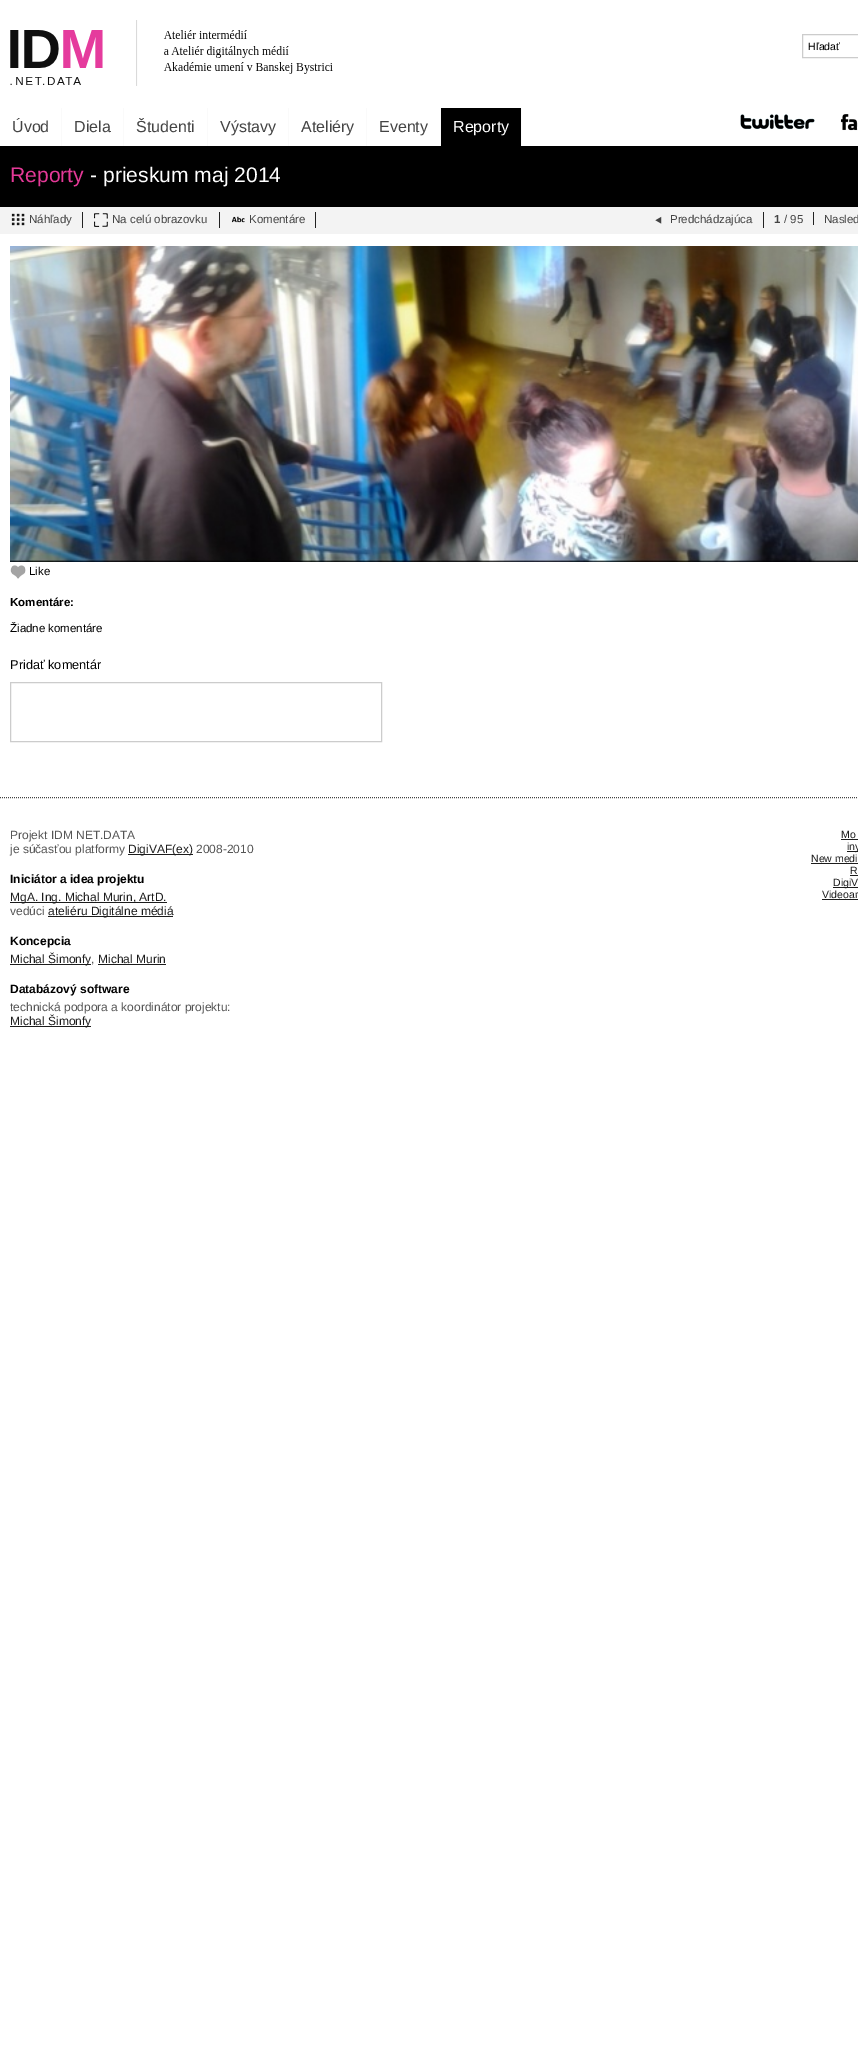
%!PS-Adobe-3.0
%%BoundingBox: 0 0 858 2054
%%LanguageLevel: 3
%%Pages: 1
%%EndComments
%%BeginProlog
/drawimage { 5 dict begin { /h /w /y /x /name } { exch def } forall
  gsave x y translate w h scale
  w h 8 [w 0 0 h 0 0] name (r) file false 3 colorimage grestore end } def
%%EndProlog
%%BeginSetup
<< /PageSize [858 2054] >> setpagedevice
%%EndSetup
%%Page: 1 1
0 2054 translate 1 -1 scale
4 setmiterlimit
1 setgray
0 0 858 2054 rectfill
(images/1.raw) 10 20 323 66 drawimage
0.8 setgray
802.5 34.5 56 23 rectstroke
0.98 setgray
61 108 1 38 rectfill
123 108 1 38 rectfill
207 108 1 38 rectfill
288 108 1 38 rectfill
366 108 1 38 rectfill
440 108 1 38 rectfill
0 setgray
441 108 80 38 rectfill
0.98 setgray
521 108 1 38 rectfill
(images/2.raw) 740 114 75 16 drawimage
(images/3.raw) 840 114 18 17 drawimage
0 setgray
0 146 858 61 rectfill
0.953 setgray
0 207 858 27 rectfill
0.133 setgray
82 212 1 16 rectfill
(images/4.raw) 11 213 14 13 drawimage
219 212 1 16 rectfill
(images/5.raw) 94 213 14 14 drawimage
315 212 1 16 rectfill
(images/6.raw) 231 216 14 7 drawimage
763 212 1 16 rectfill
(images/7.raw) 655 216 7 8 drawimage
813 212 1 13 rectfill
(images/8.raw) 10 246 848 316 drawimage
(images/9.raw) 10 565 16 14 drawimage
0.8 setgray
10.5 682.5 371 59 rectstroke
0.267 setgray
[1 1] 0 setdash
newpath 0 797.5 moveto 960 797.5 lineto stroke
0.11 setgray
128 854 65 1 rectfill
10 902 157 1 rectfill
48 916 125 1 rectfill
10 964 81 1 rectfill
98 964 68 1 rectfill
10 1026 81 1 rectfill
841 839 17 1 rectfill
847 851 11 1 rectfill
811 863 47 1 rectfill
850 875 8 1 rectfill
833 887 25 1 rectfill
822 899 36 1 rectfill
/LiberationSans-Regular [10.5 0 0 -10.5 0 0] selectfont
0 setgray
808 50 moveto (Hľadať) show
/LiberationSans-Regular [16 0 0 -16 0 0] selectfont
0.267 setgray
12 132 moveto (Úvod) show
74 132 moveto (Diela) show
136 132 moveto (Študenti) show
220 132 moveto (Výstavy) show
301 132 moveto (Ateliéry) show
379 132 moveto (Eventy) show
1 setgray
453 132 moveto (Reporty) show
/LiberationSans-Regular [21.1 0 0 -21.1 0 0] selectfont
0.894 0.224 0.592 setrgbcolor
10 182 moveto (Reporty) show
1 setgray
90 182 moveto (- prieskum maj 2014) show
/LiberationSans-Regular [11.5 0 0 -11.5 0 0] selectfont
0.267 setgray
29 223 moveto (Náhľady) show
112 223 moveto (Na celú obrazovku) show
249 223 moveto (Komentáre) show
670 223 moveto (Predchádzajúca) show
/LiberationSans-Bold [11.5 0 0 -11.5 0 0] selectfont
774 223 moveto (1) show
/LiberationSans-Regular [11.5 0 0 -11.5 0 0] selectfont
784 223 moveto (/ 95) show
824 223 moveto (Nasled) show
0 setgray
29 575 moveto (Like) show
/LiberationSans-Bold [11.5 0 0 -11.5 0 0] selectfont
10 606 moveto (Komentáre:) show
/LiberationSans-Regular [11.5 0 0 -11.5 0 0] selectfont
10 632 moveto (Žiadne komentáre) show
/LiberationSans-Regular [12.75 0 0 -12.75 0 0] selectfont
10 669 moveto (Pridať komentár) show
/LiberationSans-Regular [12 0 0 -12 0 0] selectfont
0.333 setgray
10 839 moveto (Projekt IDM NET.DATA) show
10 853 moveto (je súčasťou platformy) show
0.11 setgray
128 853 moveto (DigiVAF\(ex\)) show
0.333 setgray
196 853 moveto (2008-2010) show
/LiberationSans-Bold [12 0 0 -12 0 0] selectfont
0 setgray
10 883 moveto (Iniciátor a idea projektu) show
/LiberationSans-Regular [12 0 0 -12 0 0] selectfont
0.11 setgray
10 901 moveto (MgA. Ing. Michal Murin, ArtD.) show
0.333 setgray
10 915 moveto (vedúci) show
0.11 setgray
48 915 moveto (ateliéru Digitálne médiá) show
/LiberationSans-Bold [12 0 0 -12 0 0] selectfont
0 setgray
10 945 moveto (Koncepcia) show
/LiberationSans-Regular [12 0 0 -12 0 0] selectfont
0.11 setgray
10 963 moveto (Michal Šimonfy) show
0.333 setgray
91 963 moveto (,) show
0.11 setgray
98 963 moveto (Michal Murin) show
/LiberationSans-Bold [12 0 0 -12 0 0] selectfont
0 setgray
10 993 moveto (Databázový software) show
/LiberationSans-Regular [12 0 0 -12 0 0] selectfont
0.333 setgray
10 1011 moveto (technická podpora a koordinátor projektu:) show
0.11 setgray
10 1025 moveto (Michal Šimonfy) show
/LiberationSans-Regular [10.5 0 0 -10.5 0 0] selectfont
841 838 moveto (Mo) show
847 850 moveto (iny) show
811 862 moveto (New medi) show
850 874 moveto (R) show
833 886 moveto (DigiV) show
822 898 moveto (Videoar) show
showpage
%%EOF
